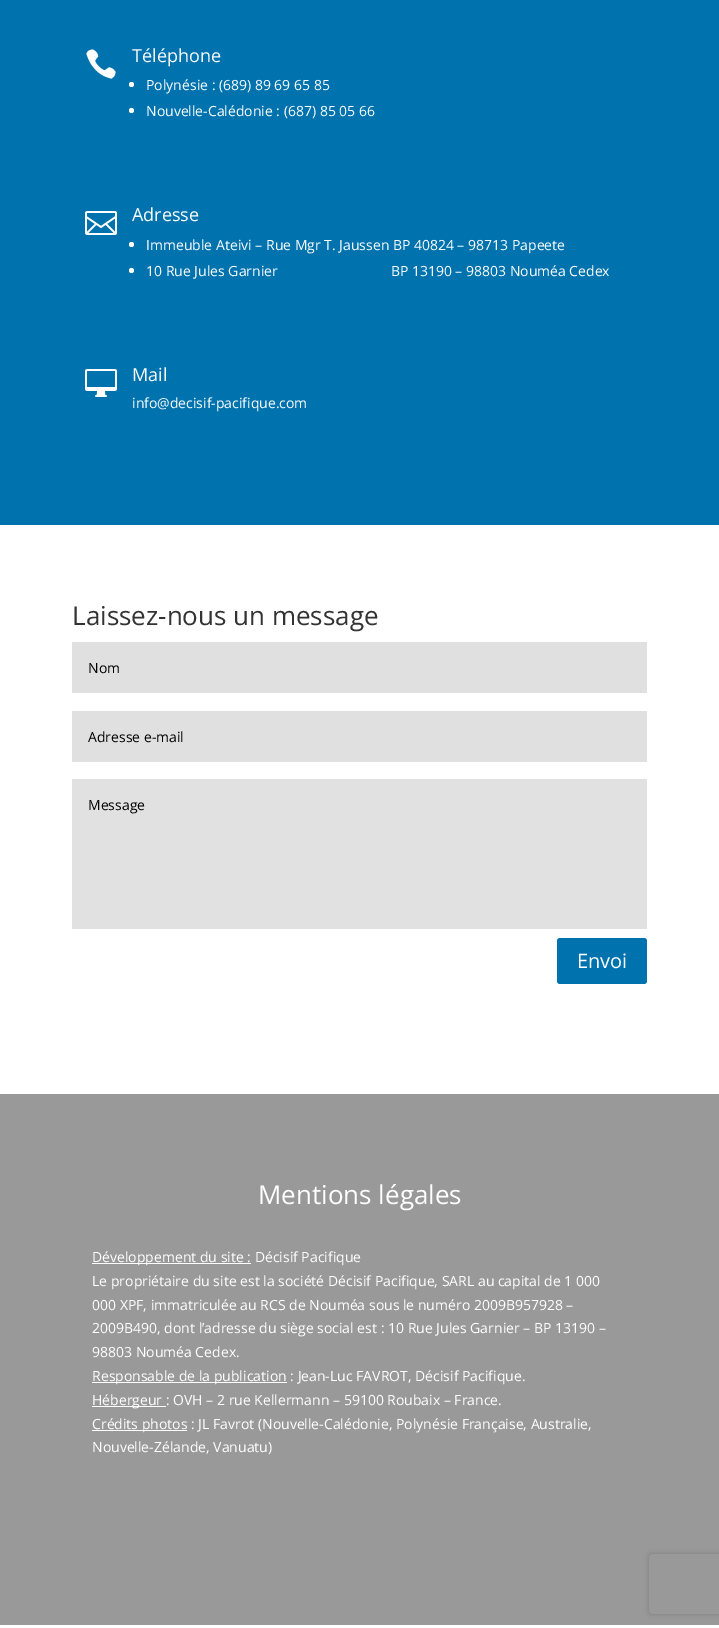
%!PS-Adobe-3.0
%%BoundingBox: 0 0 719 1628
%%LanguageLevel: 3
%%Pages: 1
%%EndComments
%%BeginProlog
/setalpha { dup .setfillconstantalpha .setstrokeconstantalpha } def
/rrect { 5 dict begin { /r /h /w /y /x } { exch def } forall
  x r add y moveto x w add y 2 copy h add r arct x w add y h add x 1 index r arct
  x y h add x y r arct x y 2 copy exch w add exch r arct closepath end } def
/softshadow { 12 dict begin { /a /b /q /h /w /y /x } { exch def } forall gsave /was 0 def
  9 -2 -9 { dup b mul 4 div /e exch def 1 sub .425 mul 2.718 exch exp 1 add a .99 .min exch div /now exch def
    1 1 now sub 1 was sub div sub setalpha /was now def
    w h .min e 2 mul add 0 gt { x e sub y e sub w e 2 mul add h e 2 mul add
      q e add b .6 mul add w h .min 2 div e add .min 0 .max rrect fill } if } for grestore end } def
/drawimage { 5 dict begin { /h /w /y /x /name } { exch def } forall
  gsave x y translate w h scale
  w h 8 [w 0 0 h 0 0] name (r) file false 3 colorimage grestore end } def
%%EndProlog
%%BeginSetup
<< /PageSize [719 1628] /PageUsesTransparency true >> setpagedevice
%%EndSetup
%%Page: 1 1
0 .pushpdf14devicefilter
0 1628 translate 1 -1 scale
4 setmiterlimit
1 setgray
0 0 719 1628 rectfill
0 0.451 0.682 setrgbcolor
0 0 719 525 rectfill
(images/1.raw) 86 49 30 30 drawimage
1 setgray
newpath 131.5 84.5 2.5 0 360 arc closepath fill
newpath 131.5 110.5 2.5 0 360 arc closepath fill
(images/2.raw) 85 211 32 24 drawimage
newpath 131.5 244.5 2.5 0 360 arc closepath fill
newpath 131.5 270.5 2.5 0 360 arc closepath fill
(images/3.raw) 85 369 32 28 drawimage
0.878 setgray
72 642 575 51 rectfill
72 711 575 51 rectfill
0.882 setgray
72 779 575 150 rectfill
0 0.451 0.682 setrgbcolor
557 938 90 46 3 rrect fill
0.6 setgray
0 1094 719 531 rectfill
1 setgray
92 1263 159 1 rectfill
92 1382 195 1 rectfill
92 1406 74 1 rectfill
92 1430 95 1 rectfill
gsave
newpath 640 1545 moveto 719 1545 lineto 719 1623 lineto 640 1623 lineto closepath 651 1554 moveto 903 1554 lineto 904 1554 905 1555 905 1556 curveto 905 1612 lineto 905 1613 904 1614 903 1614 curveto 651 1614 lineto 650 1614 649 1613 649 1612 curveto 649 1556 lineto 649 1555 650 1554 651 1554 curveto closepath eoclip newpath
0.502 setgray
649 1554 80 60 2 2.5 1 softshadow
grestore
/OpenSans-Regular [18 0 0 -18 0 0] selectfont
132 62 moveto (Téléphone) show
/OpenSans-Regular [14 0 0 -14 0 0] selectfont
146 90 moveto (Polynésie : \(689\) 89 69 65 85) show
146 116 moveto (Nouvelle-Calédonie : \(687\) 85 05 66) show
/OpenSans-Regular [18 0 0 -18 0 0] selectfont
132 221 moveto (Adresse) show
/OpenSans-Regular [14 0 0 -14 0 0] selectfont
146 250 moveto (Immeuble Ateivi – Rue Mgr T. Jaussen BP 40824 – 98713 Papeete) show
146 276 moveto (10 Rue Jules Garnier                               BP 13190 – 98803 Nouméa Cedex) show
/OpenSans-Regular [18 0 0 -18 0 0] selectfont
132 381 moveto (Mail) show
/OpenSans-Regular [14 0 0 -14 0 0] selectfont
132 408 moveto (info@decisif-pacifique.com) show
/OpenSans-Regular [26 0 0 -26 0 0] selectfont
0.2 setgray
72 625 moveto (Laissez-nous un message) show
/OpenSans-Regular [14 0 0 -14 0 0] selectfont
0 setgray
88 673 moveto (Nom) show
88 742 moveto (Adresse e-mail) show
88 810 moveto (Message) show
/OpenSans-Regular [20 0 0 -20 0 0] selectfont
1 setgray
577 968 moveto (Envoi) show
/OpenSans-Regular [26 0 0 -26 0 0] selectfont
258 1204 moveto (Mentions légales) show
/OpenSans-Regular [14 0 0 -14 0 0] selectfont
92 1262 moveto (Développement du site : Décisif Pacifique) show
92 1286 moveto (Le propriétaire du site est la société Décisif Pacifique, SARL au capital de 1 000) show
92 1310 moveto (000 XPF, immatriculée au RCS de Nouméa sous le numéro 2009B957928 –) show
92 1333 moveto (2009B490, dont l’adresse du siège social est : 10 Rue Jules Garnier – BP 13190 –) show
92 1357 moveto (98803 Nouméa Cedex.) show
92 1381 moveto (Responsable de la publication : Jean-Luc FAVROT, Décisif Pacifique.) show
92 1405 moveto (Hébergeur : OVH – 2 rue Kellermann – 59100 Roubaix – France.) show
92 1429 moveto (Crédits photos : JL Favrot \(Nouvelle-Calédonie, Polynésie Française, Australie,) show
92 1452 moveto (Nouvelle-Zélande, Vanuatu\)) show
.poppdf14devicefilter showpage
%%EOF
